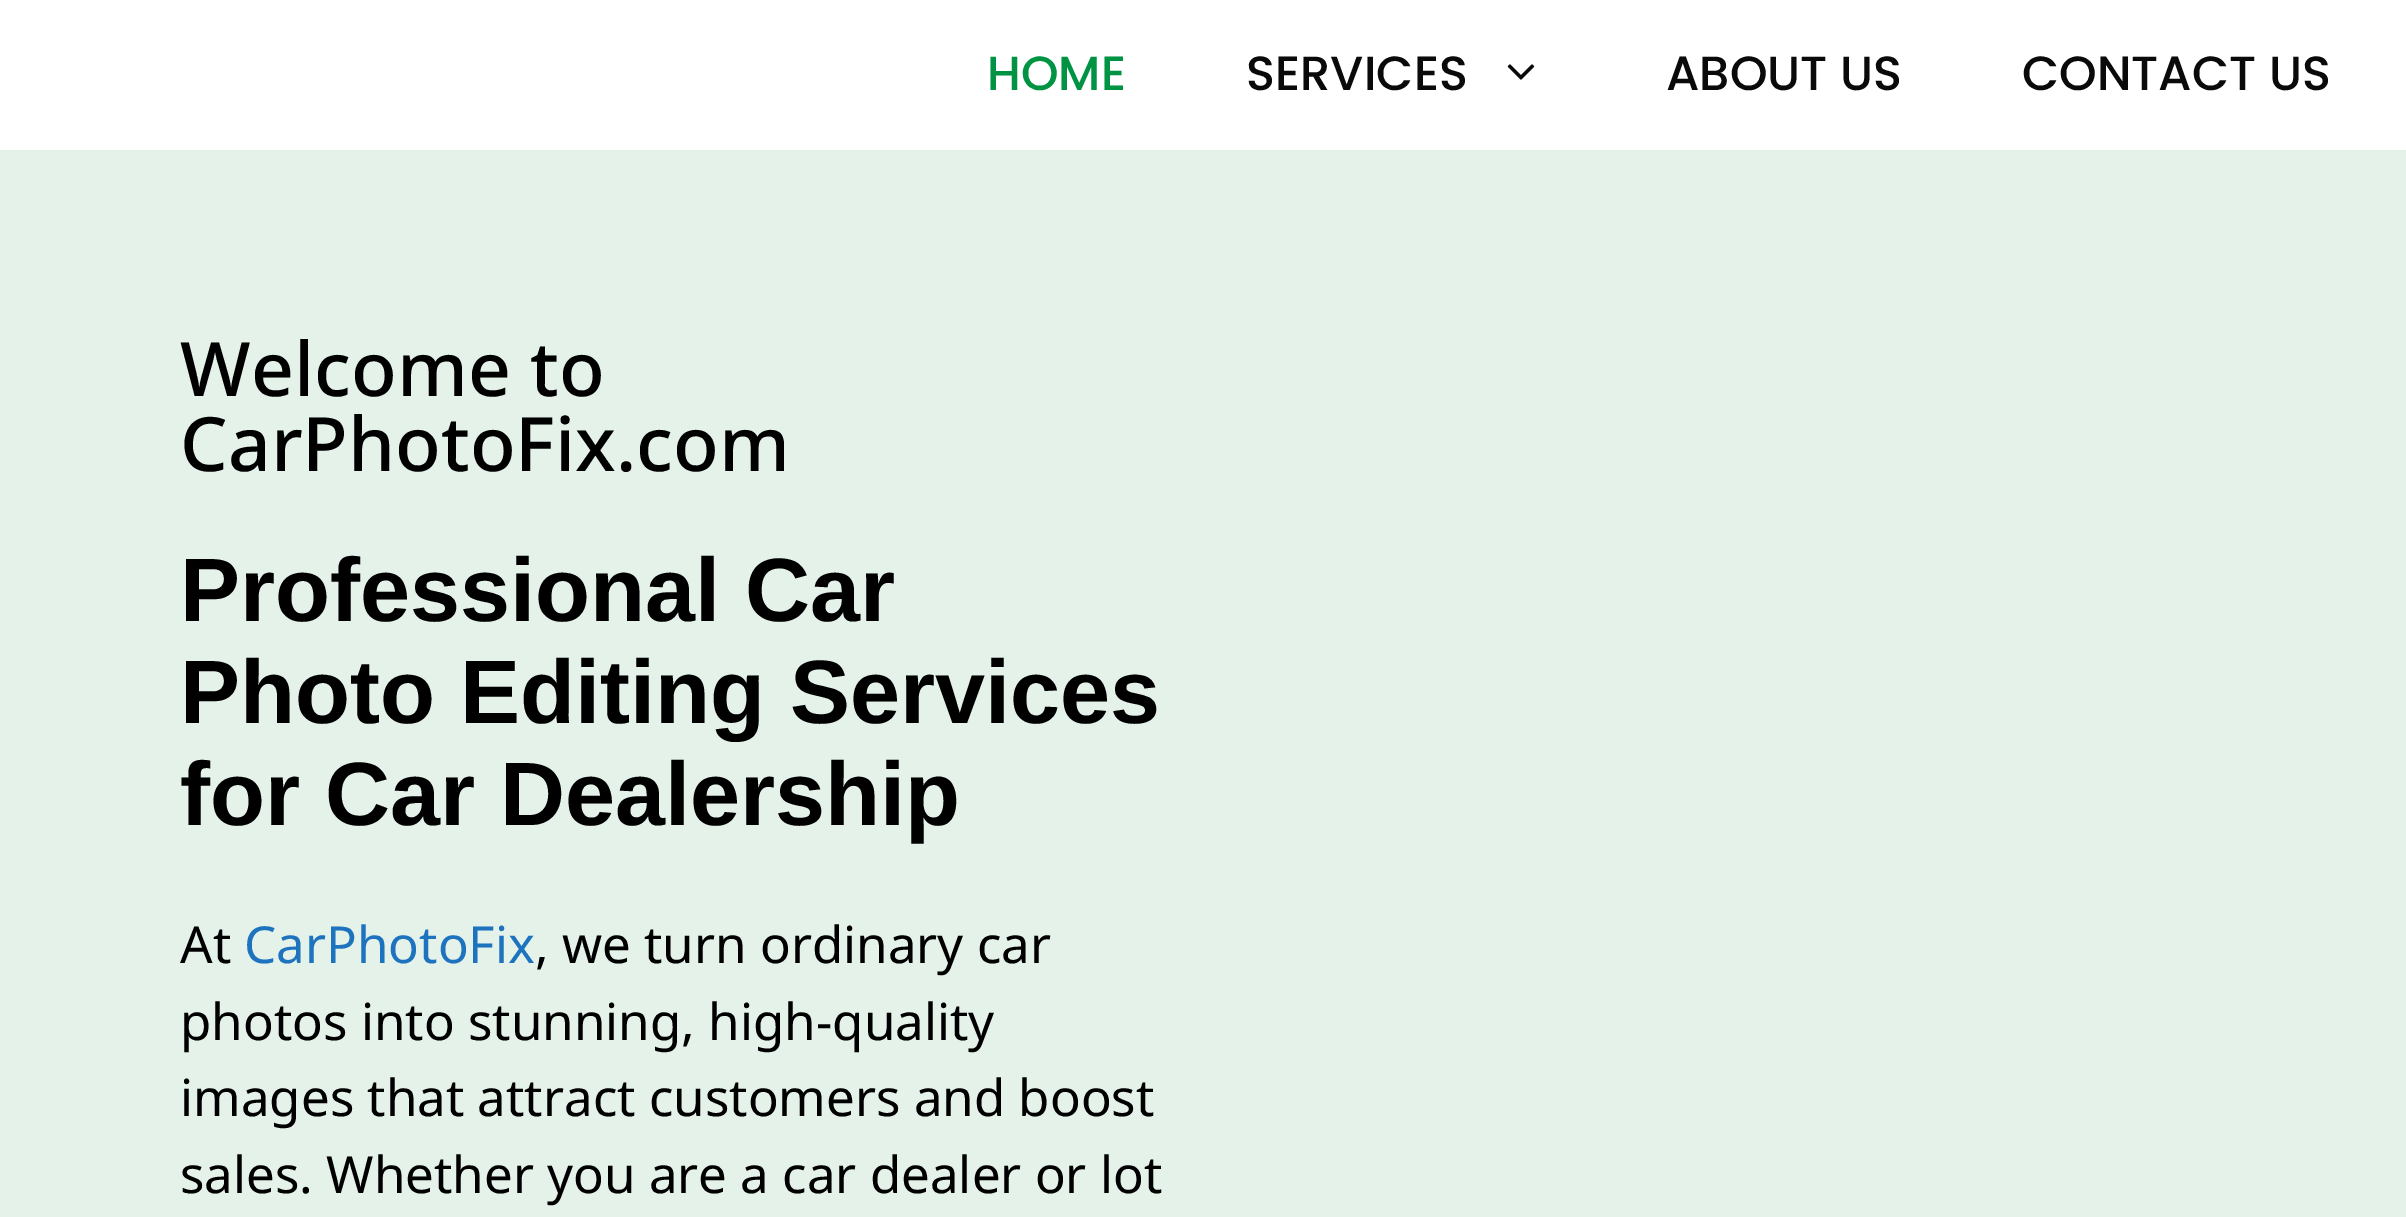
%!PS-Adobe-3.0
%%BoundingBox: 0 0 2406 1217
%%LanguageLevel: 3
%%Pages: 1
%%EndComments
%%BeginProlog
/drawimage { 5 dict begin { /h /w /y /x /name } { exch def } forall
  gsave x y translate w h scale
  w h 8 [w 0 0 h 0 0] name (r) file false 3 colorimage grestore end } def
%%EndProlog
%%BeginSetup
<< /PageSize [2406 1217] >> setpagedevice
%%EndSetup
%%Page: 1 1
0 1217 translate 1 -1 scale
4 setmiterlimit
1 setgray
0 0 2406 1217 rectfill
(images/1.raw) 1507 64 28 16 drawimage
0.894 0.949 0.918 setrgbcolor
0 150 2406 1067 rectfill
/Poppins-Medium [48 0 0 -48 0 0] selectfont
0 0.576 0.267 setrgbcolor
987 90 moveto (HOME) show
0.039 setgray
1246 90 moveto (SERVICES) show
1666 90 moveto (ABOUT US) show
2022 90 moveto (CONTACT US) show
/NotoSans-Medium [75 0 0 -75 0 0] selectfont
0 setgray
180 396 moveto (Welcome to) show
180 471 moveto (CarPhotoFix.com) show
/LiberationSans-Bold [90 0 0 -90 0 0] selectfont
180 621 moveto (Professional Car) show
180 723 moveto (Photo Editing Services) show
180 825 moveto (for Car Dealership) show
/NotoSans-Regular [51 0 0 -51 0 0] selectfont
180 963 moveto (At) show
0.118 0.451 0.745 setrgbcolor
244 963 moveto (CarPhotoFix) show
0 setgray
535 963 moveto (, we turn ordinary car) show
180 1040 moveto (photos into stunning, high-quality) show
180 1116 moveto (images that attract customers and boost) show
180 1193 moveto (sales. Whether you are a car dealer or lot) show
showpage
%%EOF
